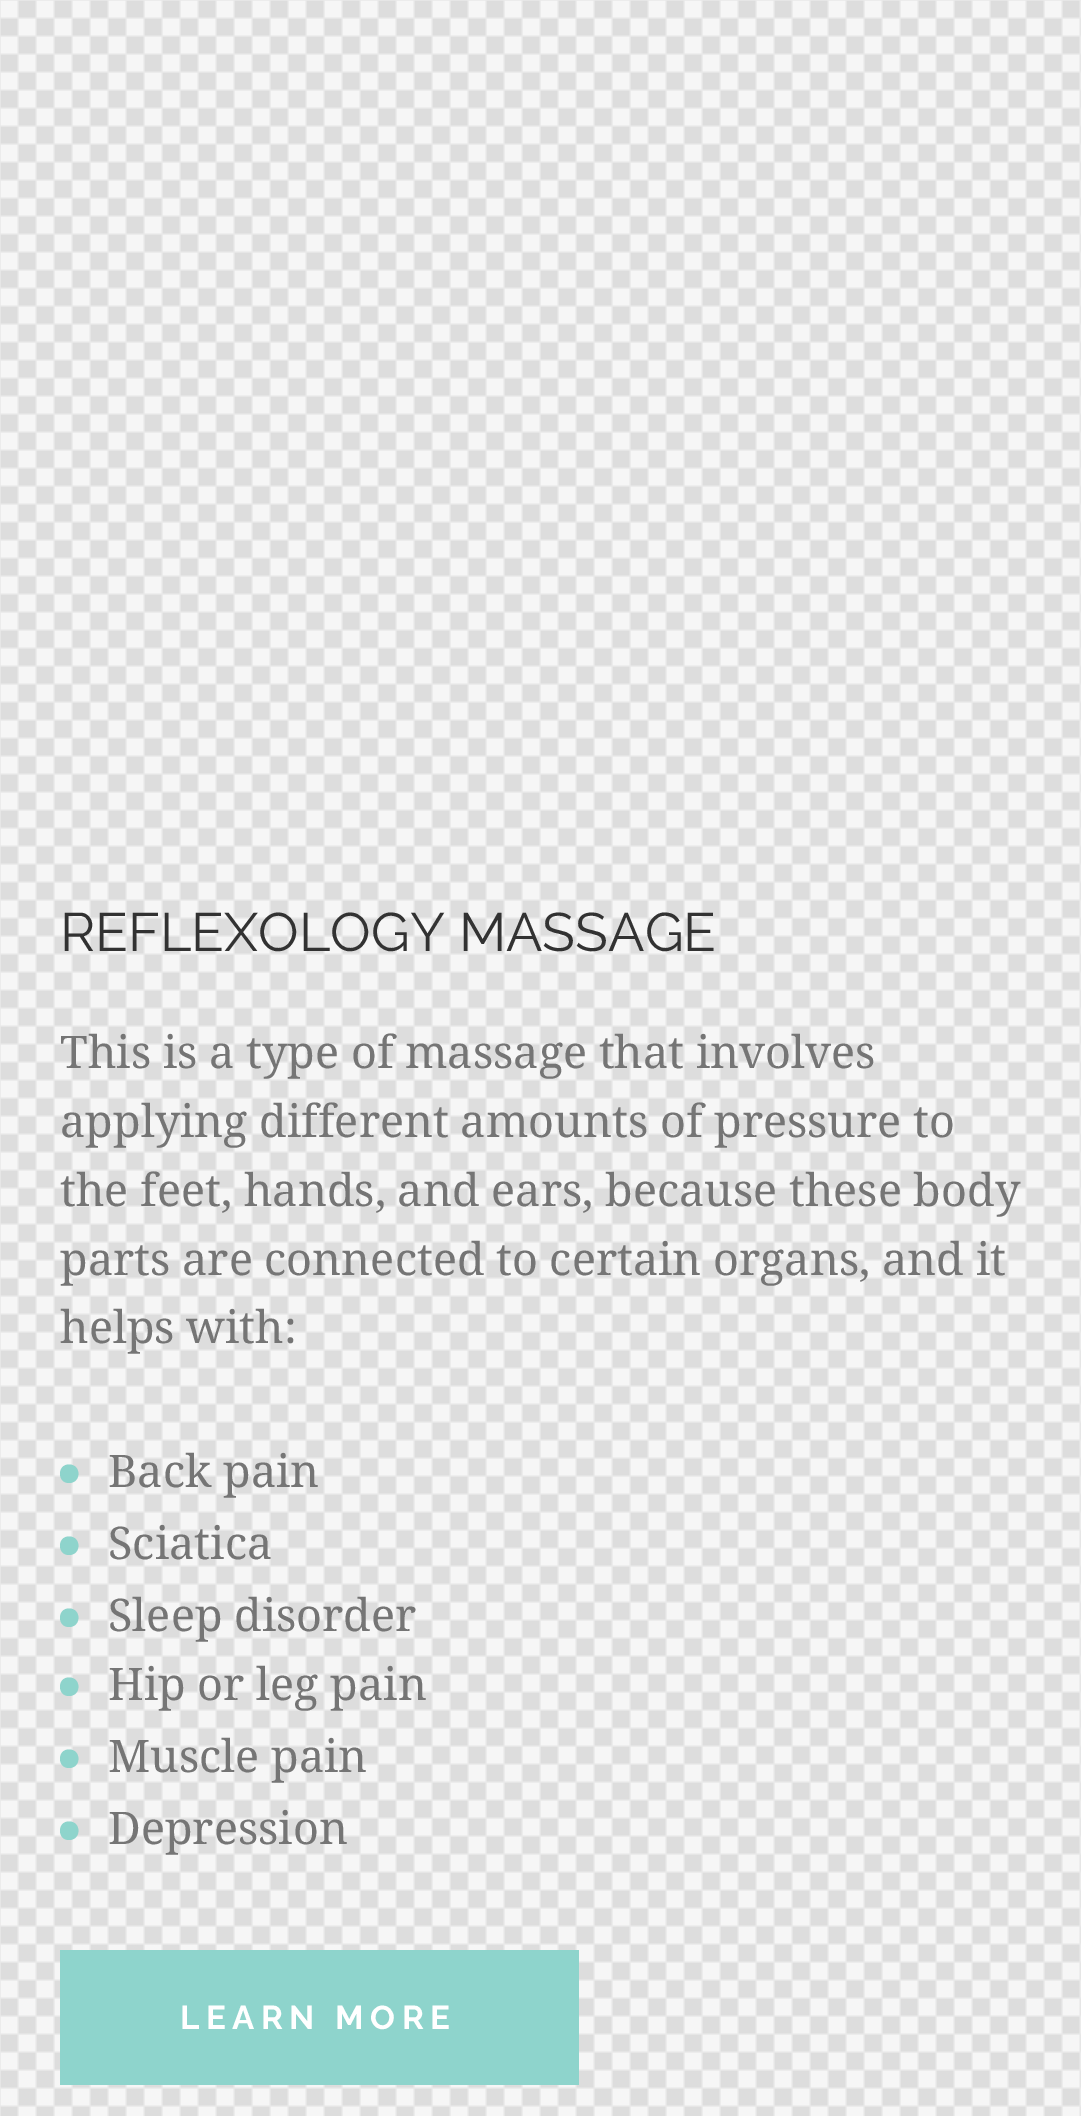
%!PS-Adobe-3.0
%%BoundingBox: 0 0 1081 2116
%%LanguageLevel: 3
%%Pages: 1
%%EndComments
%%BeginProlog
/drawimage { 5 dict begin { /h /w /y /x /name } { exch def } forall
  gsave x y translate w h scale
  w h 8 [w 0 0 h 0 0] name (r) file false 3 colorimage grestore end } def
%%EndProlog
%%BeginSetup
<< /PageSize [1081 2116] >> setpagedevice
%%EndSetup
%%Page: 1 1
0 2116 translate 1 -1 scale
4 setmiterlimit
1 setgray
0 0 1081 2116 rectfill
(images/1.raw) 0 0 1081 2116 drawimage
0.557 0.831 0.8 setrgbcolor
newpath 69 1464.5 moveto 81.5 1464.5 81.5 1483 69 1483 curveto 57 1483 57 1464.5 69 1464.5 curveto closepath fill
newpath 69 1536.5 moveto 81.5 1536.5 81.5 1555 69 1555 curveto 57 1555 57 1536.5 69 1536.5 curveto closepath fill
newpath 69 1608.5 moveto 81.5 1608.5 81.5 1627 69 1627 curveto 57 1627 57 1608.5 69 1608.5 curveto closepath fill
newpath 69 1677.5 moveto 81.5 1677.5 81.5 1696 69 1696 curveto 57 1696 57 1677.5 69 1677.5 curveto closepath fill
newpath 69 1749.5 moveto 81.5 1749.5 81.5 1768 69 1768 curveto 57 1768 57 1749.5 69 1749.5 curveto closepath fill
newpath 69 1821.5 moveto 81.5 1821.5 81.5 1840 69 1840 curveto 57 1840 57 1821.5 69 1821.5 curveto closepath fill
60 1950 519 135 rectfill
/Raleway-Regular [54 0 0 -54 0 0] selectfont
0.196 setgray
60 951 moveto (REFLEXOLOGY MASSAGE) show
/DroidSerif-Regular [45 0 0 -45 0 0] selectfont
0.459 setgray
60 1068 moveto (This is a type of massage that involves) show
60 1137 moveto (applying different amounts of pressure to) show
60 1206 moveto (the feet, hands, and ears, because these body) show
60 1275 moveto (parts are connected to certain organs, and it) show
60 1343 moveto (helps with:) show
108 1487 moveto (Back pain) show
108 1559 moveto (Sciatica) show
108 1631 moveto (Sleep disorder) show
108 1700 moveto (Hip or leg pain) show
108 1772 moveto (Muscle pain) show
108 1844 moveto (Depression) show
/Raleway-Bold [33 0 0 -33 0 0] selectfont
1 setgray
180 2029 moveto 6.5 0 (LEARN MORE) ashow
showpage
%%EOF
